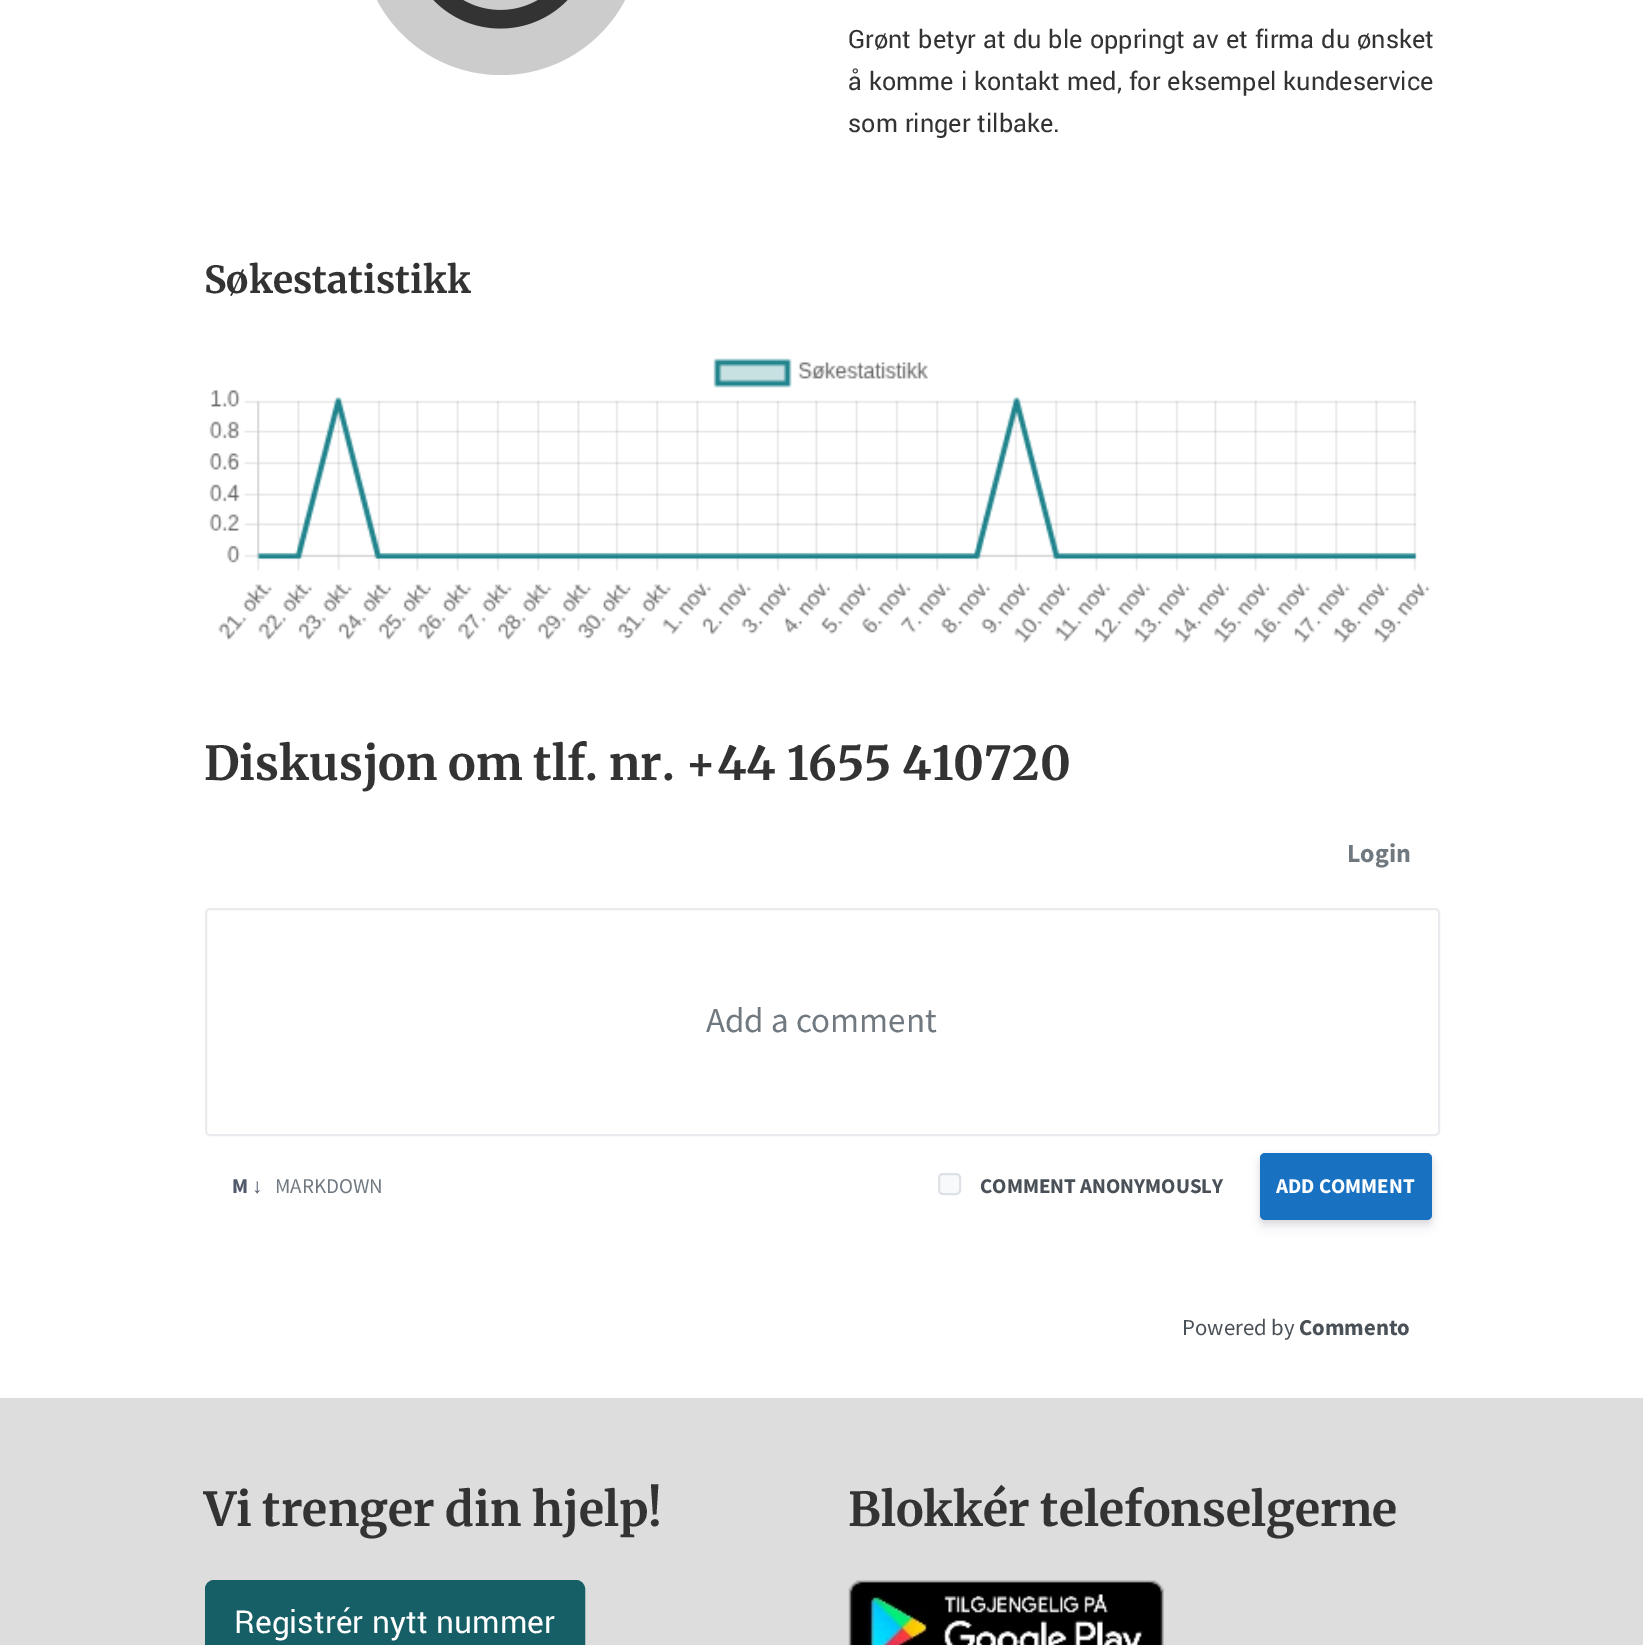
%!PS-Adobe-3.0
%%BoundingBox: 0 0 1643 1645
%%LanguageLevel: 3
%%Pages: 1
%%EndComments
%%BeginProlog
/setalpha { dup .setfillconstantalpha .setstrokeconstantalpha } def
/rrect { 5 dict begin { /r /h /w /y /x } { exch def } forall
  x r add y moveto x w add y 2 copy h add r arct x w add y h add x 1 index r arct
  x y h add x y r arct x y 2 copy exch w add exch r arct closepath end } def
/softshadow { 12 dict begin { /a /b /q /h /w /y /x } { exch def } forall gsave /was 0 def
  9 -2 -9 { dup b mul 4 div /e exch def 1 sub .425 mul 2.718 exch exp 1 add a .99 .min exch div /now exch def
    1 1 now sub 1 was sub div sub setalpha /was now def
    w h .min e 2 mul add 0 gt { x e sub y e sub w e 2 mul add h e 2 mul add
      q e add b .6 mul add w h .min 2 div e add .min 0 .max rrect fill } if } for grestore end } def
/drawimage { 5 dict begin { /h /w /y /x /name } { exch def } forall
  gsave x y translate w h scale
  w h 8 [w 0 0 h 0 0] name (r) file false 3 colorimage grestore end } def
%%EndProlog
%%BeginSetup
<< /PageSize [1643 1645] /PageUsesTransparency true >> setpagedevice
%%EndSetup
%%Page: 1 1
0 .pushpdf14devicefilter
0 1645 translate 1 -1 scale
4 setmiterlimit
1 setgray
0 0 1643 1645 rectfill
0.8 setgray
361 -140 280 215 140 rrect fill
(images/1.raw) 433 0 135 29 drawimage
(images/2.raw) 209 358 1221 285 drawimage
0.922 0.922 0.937 setrgbcolor
2 setlinewidth
206 909 1233 226 4 rrect stroke
0.973 0.976 0.98 setrgbcolor
939 1174 21 20 4 rrect gsave fill grestore
0.871 0.886 0.902 setrgbcolor
stroke
0 setgray
1260 1155 172 67 5 2.5 0.08 softshadow
0.196 0.196 0.365 setrgbcolor
1260 1160 172 67 5 5 0.11 softshadow
0.098 0.443 0.761 setrgbcolor
1260 1153 172 67 5 rrect fill
0.867 setgray
0 1398 1643 247 rectfill
0.09 0.373 0.4 setrgbcolor
206 1581 378 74 8 rrect gsave fill grestore
stroke
(images/3.raw) 848 1580 316 65 drawimage
/Yantramanav-Regular [28 0 0 -28 0 0] selectfont
0.2 setgray
848 48 moveto (Grønt betyr at du ble oppringt av et firma du ønsket) show
848 90 moveto (å komme i kontakt med, for eksempel kundeservice) show
848 132 moveto (som ringer tilbake.) show
/Merriweather-Bold [37.25 0 0 -37.25 0 0] selectfont
204 293 moveto (Søkestatistikk) show
/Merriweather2-Bold [46.75 0 0 -46.75 0 0] selectfont
204 780 moveto (Diskusjon om tlf. nr. +44 1655 410720) show
/SourceSansPro-Bold [26 0 0 -26 0 0] selectfont
0.439 0.471 0.502 setrgbcolor
1347 862 moveto (Login) show
/SourceSansPro-Regular [35 0 0 -35 0 0] selectfont
706 1032 moveto (Add a comment) show
/SourceSansPro-Bold [21 0 0 -21 0 0] selectfont
0.314 0.349 0.424 setrgbcolor
232 1193 moveto (M) show
/LiberationSans-Bold [21 0 0 -21 0 0] selectfont
252 1193 moveto (↓) show
/SourceSansPro-Regular [21 0 0 -21 0 0] selectfont
0.439 0.471 0.502 setrgbcolor
275 1193 moveto (MARKDOWN) show
/SourceSansPro-Bold [21 0 0 -21 0 0] selectfont
0.286 0.314 0.341 setrgbcolor
980 1193 moveto (COMMENT ANONYMOUSLY) show
1 setgray
1276 1193 moveto (ADD COMMENT) show
/SourceSansPro-Regular [22.75 0 0 -22.75 0 0] selectfont
0.286 0.314 0.341 setrgbcolor
1182 1335 moveto (Powered by) show
/SourceSansPro-Bold [22.75 0 0 -22.75 0 0] selectfont
1299 1335 moveto (Commento) show
/Merriweather2-Bold [46.75 0 0 -46.75 0 0] selectfont
0.2 setgray
204 1526 moveto (Vi trenger din hjelp!) show
/Yantramanav-Regular [35 0 0 -35 0 0] selectfont
1 setgray
234 1633 moveto (Registrér nytt nummer) show
/Merriweather2-Bold [46.75 0 0 -46.75 0 0] selectfont
0.2 setgray
848 1526 moveto (Blokkér telefonselgerne) show
.poppdf14devicefilter showpage
%%EOF
